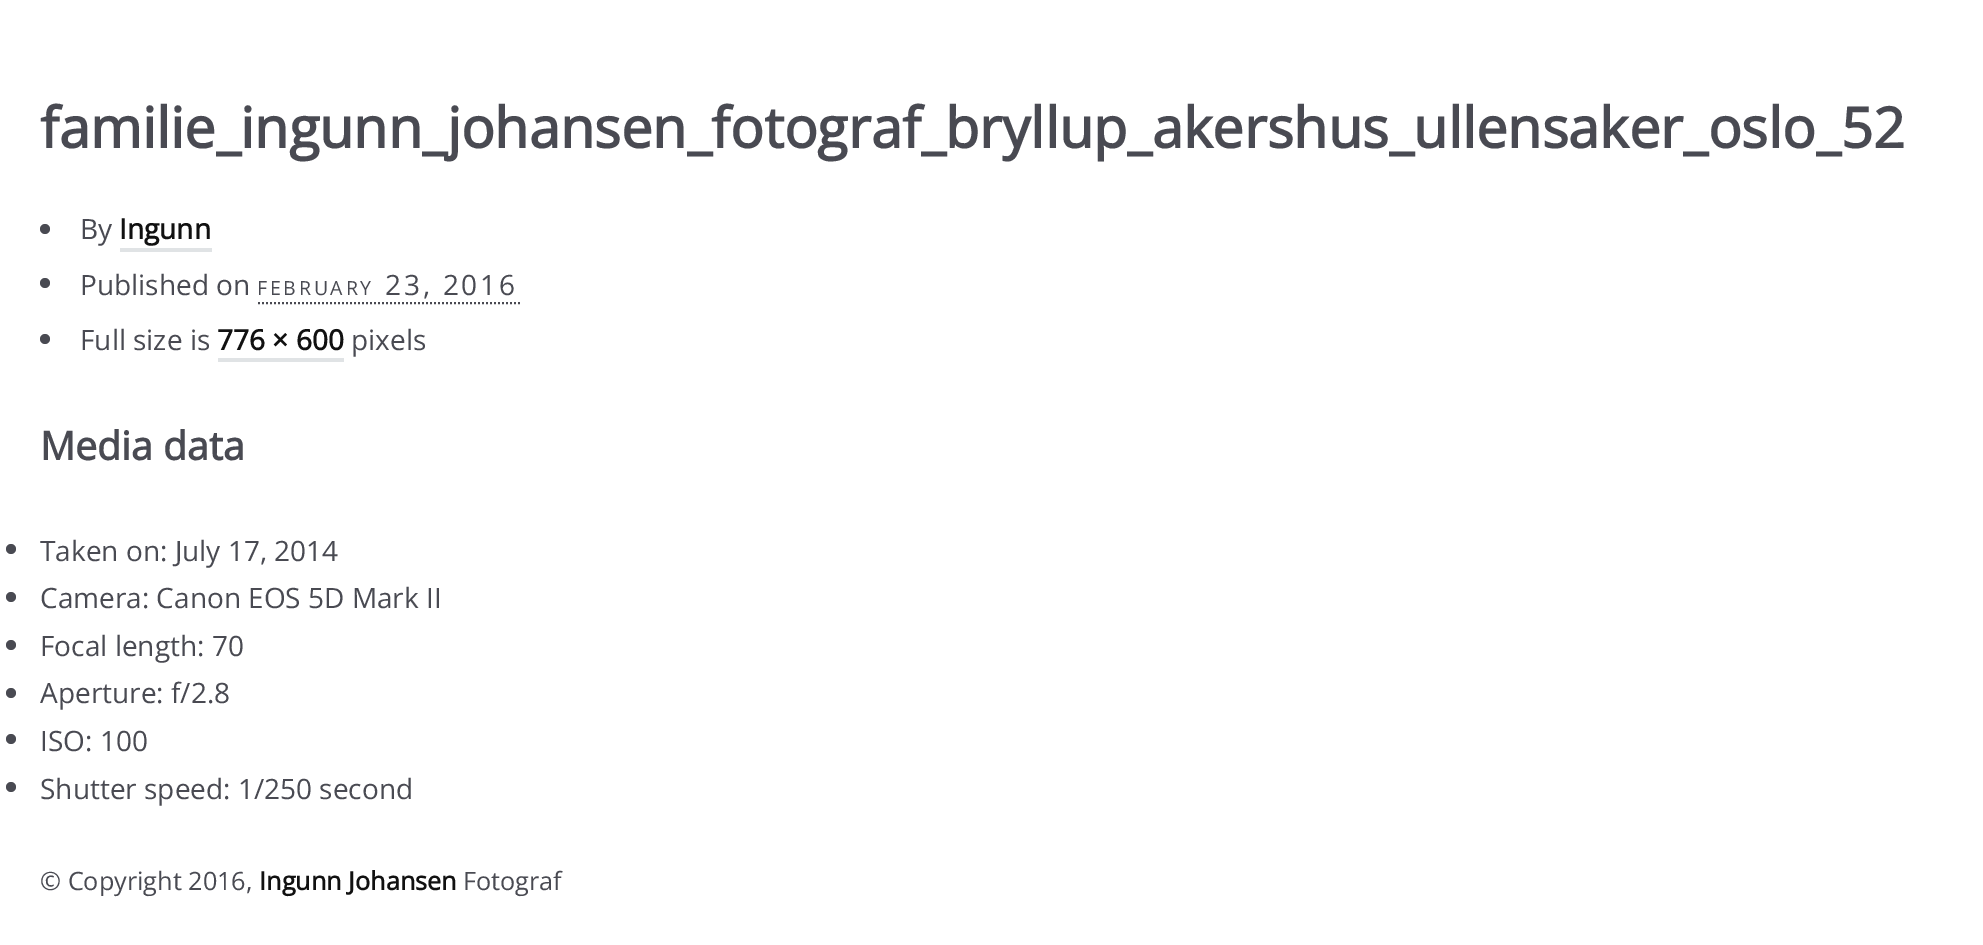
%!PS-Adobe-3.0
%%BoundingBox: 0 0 1983 945
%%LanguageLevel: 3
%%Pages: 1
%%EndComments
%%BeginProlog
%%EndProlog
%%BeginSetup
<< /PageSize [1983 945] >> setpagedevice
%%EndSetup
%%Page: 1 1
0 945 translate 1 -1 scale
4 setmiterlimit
1 setgray
0 0 1983 945 rectfill
0.286 0.29 0.322 setrgbcolor
newpath 45 229 5 0 360 arc closepath fill
0.878 0.89 0.898 setrgbcolor
120 248 92 4 rectfill
0.286 0.29 0.322 setrgbcolor
newpath 45 283 5 0 360 arc closepath fill
2 setlinewidth
[2 2] 0 setdash
newpath 258 303 moveto 520 303 lineto stroke
newpath 45 339 5 0 360 arc closepath fill
0.878 0.89 0.898 setrgbcolor
218 358 126 4 rectfill
0.286 0.29 0.322 setrgbcolor
newpath 11 549 5 0 360 arc closepath fill
newpath 11 597 5 0 360 arc closepath fill
newpath 11 645 5 0 360 arc closepath fill
newpath 11 693 5 0 360 arc closepath fill
newpath 11 739 5 0 360 arc closepath fill
newpath 11 787 5 0 360 arc closepath fill
/OpenSans-Bold [56 0 0 -56 0 0] selectfont
40 148 moveto (familie_ingunn_johansen_fotograf_bryllup_akershus_ullensaker_oslo_52) show
/OpenSans-Regular [28 0 0 -28 0 0] selectfont
80 239 moveto (By) show
/OpenSans-Bold [28 0 0 -28 0 0] selectfont
0.067 setgray
119 239 moveto (Ingunn) show
/OpenSans-Regular [28 0 0 -28 0 0] selectfont
0.286 0.29 0.322 setrgbcolor
80 295 moveto (Published on) show
/OpenSans-Regular [19.5 0 0 -19.5 0 0] selectfont
257 295 moveto 2.75 0 (FEBRUARY) ashow
/OpenSans-Regular [28 0 0 -28 0 0] selectfont
385 295 moveto 2.75 0 (23, 2016) ashow
80 350 moveto (Full size is) show
/OpenSans-Bold [28 0 0 -28 0 0] selectfont
0.067 setgray
217 350 moveto (776 × 600) show
/OpenSans-Regular [28 0 0 -28 0 0] selectfont
0.286 0.29 0.322 setrgbcolor
351 350 moveto (pixels) show
/OpenSans-Bold [39.25 0 0 -39.25 0 0] selectfont
40 460 moveto (Media data) show
/OpenSans-Regular [28 0 0 -28 0 0] selectfont
40 561 moveto (Taken on: July 17, 2014) show
40 608 moveto (Camera: Canon EOS 5D Mark II) show
40 656 moveto (Focal length: 70) show
40 703 moveto (Aperture: f/2.8) show
40 751 moveto (ISO: 100) show
40 799 moveto (Shutter speed: 1/250 second) show
/OpenSans-Regular [25.25 0 0 -25.25 0 0] selectfont
40 890 moveto (© Copyright 2016,) show
/OpenSans-Bold [25.25 0 0 -25.25 0 0] selectfont
0.067 setgray
259 890 moveto (Ingunn Johansen) show
/OpenSans-Regular [25.25 0 0 -25.25 0 0] selectfont
0.286 0.29 0.322 setrgbcolor
463 890 moveto (Fotograf) show
showpage
%%EOF
